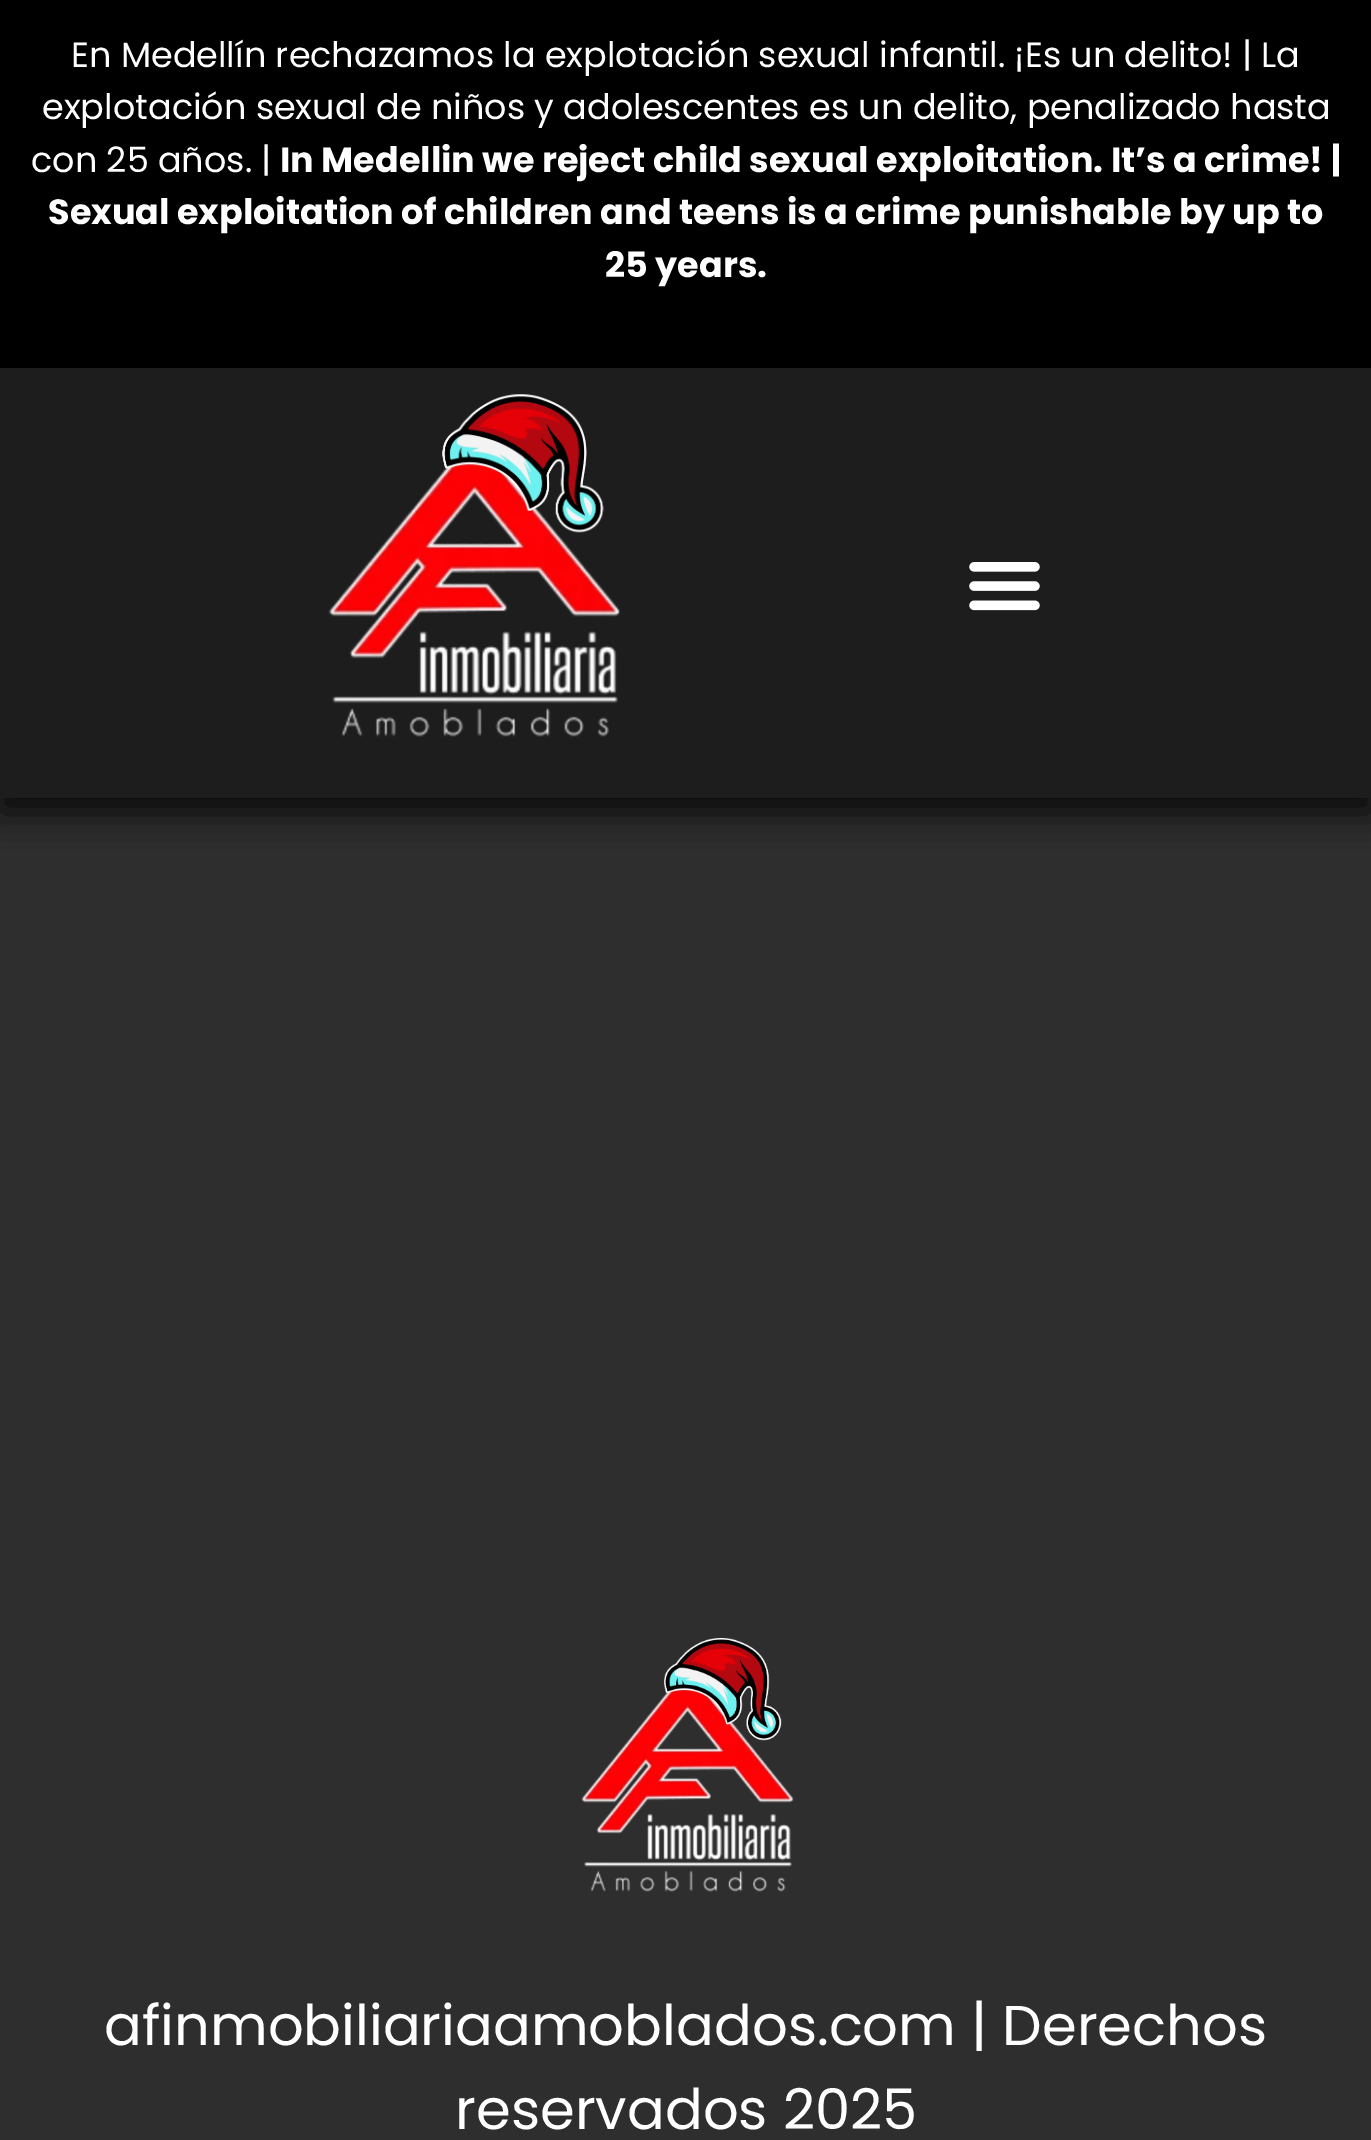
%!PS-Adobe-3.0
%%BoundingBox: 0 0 1371 2140
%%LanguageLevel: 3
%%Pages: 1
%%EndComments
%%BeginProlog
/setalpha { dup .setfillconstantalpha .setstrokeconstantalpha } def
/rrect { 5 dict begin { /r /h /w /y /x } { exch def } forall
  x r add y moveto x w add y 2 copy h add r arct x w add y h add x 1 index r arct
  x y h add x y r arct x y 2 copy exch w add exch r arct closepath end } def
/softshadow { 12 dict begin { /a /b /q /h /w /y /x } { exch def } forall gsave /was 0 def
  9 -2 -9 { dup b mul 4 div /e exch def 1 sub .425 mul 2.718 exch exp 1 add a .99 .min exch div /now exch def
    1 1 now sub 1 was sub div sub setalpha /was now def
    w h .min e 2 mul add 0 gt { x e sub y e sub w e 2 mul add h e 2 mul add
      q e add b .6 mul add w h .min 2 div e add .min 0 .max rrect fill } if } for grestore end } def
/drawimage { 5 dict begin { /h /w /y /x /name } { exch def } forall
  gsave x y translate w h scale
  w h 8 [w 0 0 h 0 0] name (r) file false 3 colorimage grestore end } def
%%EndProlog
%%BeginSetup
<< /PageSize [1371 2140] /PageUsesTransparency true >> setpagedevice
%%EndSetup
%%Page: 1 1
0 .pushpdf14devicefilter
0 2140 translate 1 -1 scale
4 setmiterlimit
0.18 setgray
0 0 1371 2140 rectfill
0 setgray
0 0 1371 368 rectfill
0 382 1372 430 0 17.5 0.83 softshadow
0.114 setgray
0 368 1371 430 rectfill
(images/1.raw) 328 394 292 343 drawimage
(images/2.raw) 969 562 71 49 drawimage
(images/3.raw) 581 1638 213 254 drawimage
/Poppins-Regular [35 0 0 -35 0 0] selectfont
1 setgray
71 67 moveto (En Medellín rechazamos la explotación sexual infantil. ¡Es un delito! | La) show
42 119 moveto (explotación sexual de niños y adolescentes es un delito, penalizado hasta) show
31 172 moveto (con 25 años. |) show
/Poppins-Bold [35 0 0 -35 0 0] selectfont
280 172 moveto (In Medellin we reject child sexual exploitation. It’s a crime! |) show
48 224 moveto (Sexual exploitation of children and teens is a crime punishable by up to) show
605 277 moveto (25 years.) show
/Poppins-Regular [56 0 0 -56 0 0] selectfont
104 2045 moveto (afinmobiliariaamoblados.com | Derechos) show
455 2129 moveto (reservados 2025) show
.poppdf14devicefilter showpage
%%EOF
